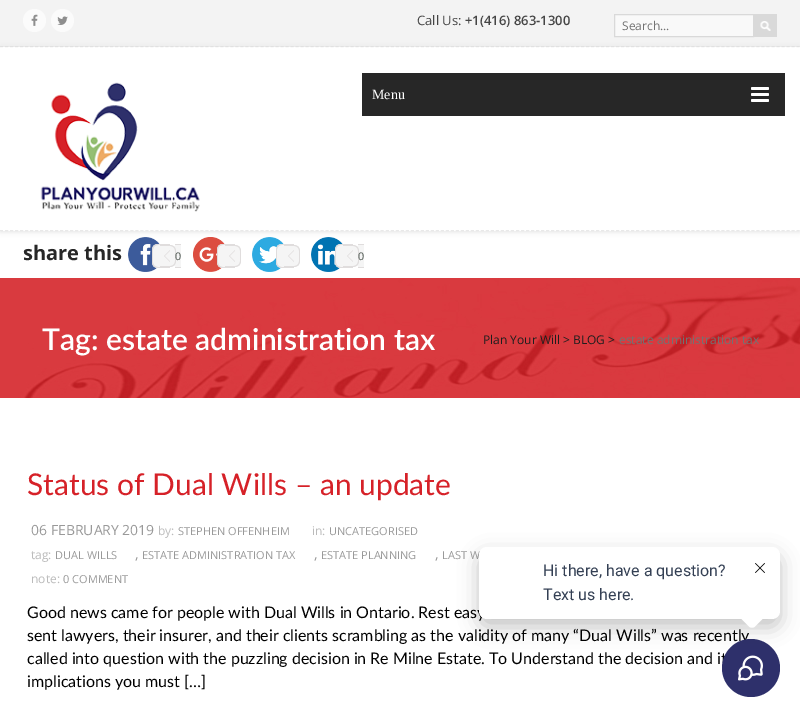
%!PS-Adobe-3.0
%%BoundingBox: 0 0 800 717
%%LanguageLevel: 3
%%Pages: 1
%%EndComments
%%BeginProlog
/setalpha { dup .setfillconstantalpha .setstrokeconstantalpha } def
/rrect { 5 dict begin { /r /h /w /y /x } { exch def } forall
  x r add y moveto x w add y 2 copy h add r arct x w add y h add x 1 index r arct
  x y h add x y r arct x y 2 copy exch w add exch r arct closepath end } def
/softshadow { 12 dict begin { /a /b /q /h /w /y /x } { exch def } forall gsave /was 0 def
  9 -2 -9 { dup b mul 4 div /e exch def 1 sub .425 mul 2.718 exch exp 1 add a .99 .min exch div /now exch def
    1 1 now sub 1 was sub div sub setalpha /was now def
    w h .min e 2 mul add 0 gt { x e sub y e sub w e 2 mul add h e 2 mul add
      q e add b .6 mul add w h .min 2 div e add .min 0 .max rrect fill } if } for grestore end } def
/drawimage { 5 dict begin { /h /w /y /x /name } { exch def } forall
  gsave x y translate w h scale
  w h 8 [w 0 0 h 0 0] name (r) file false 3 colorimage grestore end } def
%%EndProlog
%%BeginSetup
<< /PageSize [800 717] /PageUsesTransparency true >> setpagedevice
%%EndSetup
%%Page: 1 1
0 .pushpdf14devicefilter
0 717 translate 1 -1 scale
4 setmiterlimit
1 setgray
0 0 800 717 rectfill
0.953 setgray
0 0 800 47 rectfill
0.914 setgray
[3 2.01] 0 setdash
newpath 0 46.5 moveto 800 46.5 lineto stroke
0.984 setgray
newpath 34.5 20.5 11.5 0 360 arc closepath fill
(images/1.raw) 31 14 7 12 drawimage
newpath 62.5 20.5 11.5 0 360 arc closepath fill
(images/2.raw) 57 16 11 9 drawimage
0.976 setgray
newpath 614.5 14.5 moveto 753.5 14.5 lineto 753.5 36.5 lineto 614.5 36.5 lineto closepath gsave fill grestore
0.851 setgray
[] 0 setdash
stroke
754 14 23 23 rectfill
(images/3.raw) 760 21 11 10 drawimage
(images/6.raw) 128 237 32 35 drawimage
(images/7.raw) 193 237 32 35 drawimage
(images/8.raw) 252 237 32 35 drawimage
(images/9.raw) 311 237 32 35 drawimage
gsave
newpath 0 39 moveto 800 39 lineto 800 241 lineto 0 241 lineto closepath 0 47 moveto 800 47 lineto 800 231 lineto 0 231 lineto closepath eoclip newpath
0 setgray
0 48 800 184 0 2.5 0.1 softshadow
grestore
0.914 setgray
[3 2.01] 0 setdash
newpath 0 230.5 moveto 800 230.5 lineto stroke
(images/4.raw) 40 82 160 130 drawimage
0.153 setgray
362 73 423 43 rectfill
(images/5.raw) 751 87 18 15 drawimage
0.961 setgray
newpath 158 244 moveto 170 244 lineto 170 268 lineto 158 268 lineto 154.5 268 152 265.5 152 262 curveto 152 250 lineto 152 246.5 154.5 244 158 244 curveto closepath fill
0.878 0.867 0.867 setrgbcolor
newpath 158 244 moveto 170 244 lineto 170 268 lineto 158 268 lineto 154.5 268 152 265.5 152 262 curveto 152 250 lineto 152 246.5 154.5 244 158 244 curveto closepath 158 245 moveto 170 245 lineto 170 267 lineto 158 267 lineto 155 267 153 265 153 262 curveto 153 250 lineto 153 247 155 245 158 245 curveto closepath eofill
0.961 setgray
175 244 6 24 rectfill
0.878 0.867 0.867 setrgbcolor
175 244 6 1 rectfill
175 267 6 1 rectfill
0.961 setgray
newpath 160 245 moveto 170 245 lineto 173.5 245 176 247.5 176 251 curveto 176 261 lineto 176 264.5 173.5 267 170 267 curveto 160 267 lineto closepath fill
0.878 0.867 0.867 setrgbcolor
newpath 160 245 moveto 170 245 lineto 173.5 245 176 247.5 176 251 curveto 176 261 lineto 176 264.5 173.5 267 170 267 curveto 160 267 lineto closepath 160 246 moveto 170 246 lineto 173 246 175 248 175 251 curveto 175 261 lineto 175 264 173 266 170 266 curveto 160 266 lineto closepath eofill
newpath 170 250 moveto 170 262 lineto 164 256 lineto closepath fill
0.961 setgray
newpath 170 251 moveto 170 261 lineto 165 256 lineto closepath fill
newpath 223 244 moveto 235 244 lineto 235 268 lineto 223 268 lineto 219.5 268 217 265.5 217 262 curveto 217 250 lineto 217 246.5 219.5 244 223 244 curveto closepath fill
0.878 0.867 0.867 setrgbcolor
newpath 223 244 moveto 235 244 lineto 235 268 lineto 223 268 lineto 219.5 268 217 265.5 217 262 curveto 217 250 lineto 217 246.5 219.5 244 223 244 curveto closepath 223 245 moveto 235 245 lineto 235 267 lineto 223 267 lineto 220 267 218 265 218 262 curveto 218 250 lineto 218 247 220 245 223 245 curveto closepath eofill
0.961 setgray
newpath 225 245 moveto 235 245 lineto 238.5 245 241 247.5 241 251 curveto 241 261 lineto 241 264.5 238.5 267 235 267 curveto 225 267 lineto closepath fill
0.878 0.867 0.867 setrgbcolor
newpath 225 245 moveto 235 245 lineto 238.5 245 241 247.5 241 251 curveto 241 261 lineto 241 264.5 238.5 267 235 267 curveto 225 267 lineto closepath 225 246 moveto 235 246 lineto 238 246 240 248 240 251 curveto 240 261 lineto 240 264 238 266 235 266 curveto 225 266 lineto closepath eofill
newpath 235 250 moveto 235 262 lineto 229 256 lineto closepath fill
0.961 setgray
newpath 235 251 moveto 235 261 lineto 230 256 lineto closepath fill
newpath 282 244 moveto 294 244 lineto 294 268 lineto 282 268 lineto 278.5 268 276 265.5 276 262 curveto 276 250 lineto 276 246.5 278.5 244 282 244 curveto closepath fill
0.878 0.867 0.867 setrgbcolor
newpath 282 244 moveto 294 244 lineto 294 268 lineto 282 268 lineto 278.5 268 276 265.5 276 262 curveto 276 250 lineto 276 246.5 278.5 244 282 244 curveto closepath 282 245 moveto 294 245 lineto 294 267 lineto 282 267 lineto 279 267 277 265 277 262 curveto 277 250 lineto 277 247 279 245 282 245 curveto closepath eofill
0.961 setgray
newpath 284 245 moveto 294 245 lineto 297.5 245 300 247.5 300 251 curveto 300 261 lineto 300 264.5 297.5 267 294 267 curveto 284 267 lineto closepath fill
0.878 0.867 0.867 setrgbcolor
newpath 284 245 moveto 294 245 lineto 297.5 245 300 247.5 300 251 curveto 300 261 lineto 300 264.5 297.5 267 294 267 curveto 284 267 lineto closepath 284 246 moveto 294 246 lineto 297 246 299 248 299 251 curveto 299 261 lineto 299 264 297 266 294 266 curveto 284 266 lineto closepath eofill
newpath 294 250 moveto 294 262 lineto 288 256 lineto closepath fill
0.961 setgray
newpath 294 251 moveto 294 261 lineto 289 256 lineto closepath fill
newpath 341 244 moveto 353 244 lineto 353 268 lineto 341 268 lineto 337.5 268 335 265.5 335 262 curveto 335 250 lineto 335 246.5 337.5 244 341 244 curveto closepath fill
0.878 0.867 0.867 setrgbcolor
newpath 341 244 moveto 353 244 lineto 353 268 lineto 341 268 lineto 337.5 268 335 265.5 335 262 curveto 335 250 lineto 335 246.5 337.5 244 341 244 curveto closepath 341 245 moveto 353 245 lineto 353 267 lineto 341 267 lineto 338 267 336 265 336 262 curveto 336 250 lineto 336 247 338 245 341 245 curveto closepath eofill
0.961 setgray
358 244 6 24 rectfill
0.878 0.867 0.867 setrgbcolor
358 244 6 1 rectfill
358 267 6 1 rectfill
0.961 setgray
newpath 343 245 moveto 353 245 lineto 356.5 245 359 247.5 359 251 curveto 359 261 lineto 359 264.5 356.5 267 353 267 curveto 343 267 lineto closepath fill
0.878 0.867 0.867 setrgbcolor
newpath 343 245 moveto 353 245 lineto 356.5 245 359 247.5 359 251 curveto 359 261 lineto 359 264.5 356.5 267 353 267 curveto 343 267 lineto closepath 343 246 moveto 353 246 lineto 356 246 358 248 358 251 curveto 358 261 lineto 358 264 356 266 353 266 curveto 343 266 lineto closepath eofill
newpath 353 250 moveto 353 262 lineto 347 256 lineto closepath fill
0.961 setgray
newpath 353 251 moveto 353 261 lineto 348 256 lineto closepath fill
(images/10.raw) 0 278 800 120 drawimage
/OpenSans-Regular [13 0 0 -13 0 0] selectfont
0.271 setgray
417 25 moveto (Call Us:) show
/OpenSans-SemiBold [13 0 0 -13 0 0] selectfont
465 25 moveto (+1\(416\) 863-1300) show
/OpenSans-Regular [12 0 0 -12 0 0] selectfont
0.447 setgray
622 30 moveto (Search...) show
/LiberationSerif-Regular [14 0 0 -14 0 0] selectfont
1 setgray
372 99 moveto (Menu) show
/OpenSans-Bold [20 0 0 -20 0 0] selectfont
0.153 setgray
23 260 moveto (share this) show
/LiberationSans-Regular [11 0 0 -11 0 0] selectfont
0.333 0.369 0.345 setrgbcolor
175 260 moveto (0) show
358 260 moveto (0) show
/Lato-SemiBold [30 0 0 -30 0 0] selectfont
1 setgray
42 350 moveto (Tag: estate administration tax) show
/OpenSans-Regular [12 0 0 -12 0 0] selectfont
0.118 setgray
483 344 moveto (Plan Your Will > BLOG >) show
0.447 setgray
619 344 moveto (estate administration tax) show
/Lato-Regular [30 0 0 -30 0 0] selectfont
0.839 0.129 0.157 setrgbcolor
27 495 moveto (Status of Dual Wills – an update) show
/OpenSans-Regular [14 0 0 -14 0 0] selectfont
0.6 setgray
31 535 moveto (06 FEBRUARY 2019) show
/OpenSans-Regular [12 0 0 -12 0 0] selectfont
0.733 setgray
158 535 moveto (by:) show
/OpenSans-Regular [11 0 0 -11 0 0] selectfont
0.6 setgray
178 535 moveto (STEPHEN OFFENHEIM) show
/OpenSans-Regular [12 0 0 -12 0 0] selectfont
0.733 setgray
312 535 moveto (in:) show
/OpenSans-Regular [11 0 0 -11 0 0] selectfont
0.6 setgray
329 535 moveto (UNCATEGORISED) show
/OpenSans-Regular [12 0 0 -12 0 0] selectfont
0.733 setgray
31 559 moveto (tag:) show
/OpenSans-Regular [11 0 0 -11 0 0] selectfont
0.6 setgray
55 559 moveto (DUAL WILLS) show
/OpenSans-Regular [14 0 0 -14 0 0] selectfont
135 559 moveto (,) show
/OpenSans-Regular [11 0 0 -11 0 0] selectfont
142 559 moveto (ESTATE ADMINISTRATION TAX) show
/OpenSans-Regular [14 0 0 -14 0 0] selectfont
314 559 moveto (,) show
/OpenSans-Regular [11 0 0 -11 0 0] selectfont
321 559 moveto (ESTATE PLANNING) show
/OpenSans-Regular [14 0 0 -14 0 0] selectfont
435 559 moveto (,) show
/OpenSans-Regular [11 0 0 -11 0 0] selectfont
442 559 moveto (LAST W) show
/OpenSans-Regular [12 0 0 -12 0 0] selectfont
0.733 setgray
31 583 moveto (note:) show
/OpenSans-Regular [11 0 0 -11 0 0] selectfont
0.6 setgray
63 583 moveto (0 COMMENT) show
/Lato-Regular [16 0 0 -16 0 0] selectfont
0 setgray
27 618 moveto (Good news came for people with Dual Wills in Ontario. Rest easy) show
27 641 moveto (sent lawyers, their insurer, and their clients scrambling as the validity of many “Dual Wills” was recently) show
27 664 moveto (called into question with the puzzling decision in Re Milne Estate. To Understand the decision and it) show
27 687 moveto (implications you must […]) show
0.18 0.188 0.42 setrgbcolor
newpath 751 668 29 0 360 arc closepath fill
(images/12.raw) 738 655 25 26 drawimage
0 setgray
479 555 301 72 8 10 0.24 softshadow
1 setgray
479 547 301 72 8 rrect fill
(images/11.raw) 755 563 10 10 drawimage
/Roboto-Regular [16 0 0 -16 0 0] selectfont
0.204 0.251 0.329 setrgbcolor
543 600 moveto (Text us here.) show
543 576 moveto (Hi there, have a question?) show
1 setgray
newpath 755 603.5 moveto 763.5 612 lineto 765 613.5 765 616.5 763.5 618 curveto 755 626.5 lineto 753.5 628 750.5 628 749 626.5 curveto 740.5 618 lineto 739 616.5 739 613.5 740.5 612 curveto 749 603.5 lineto 750.5 602 753.5 602 755 603.5 curveto closepath fill
.poppdf14devicefilter showpage
%%EOF
